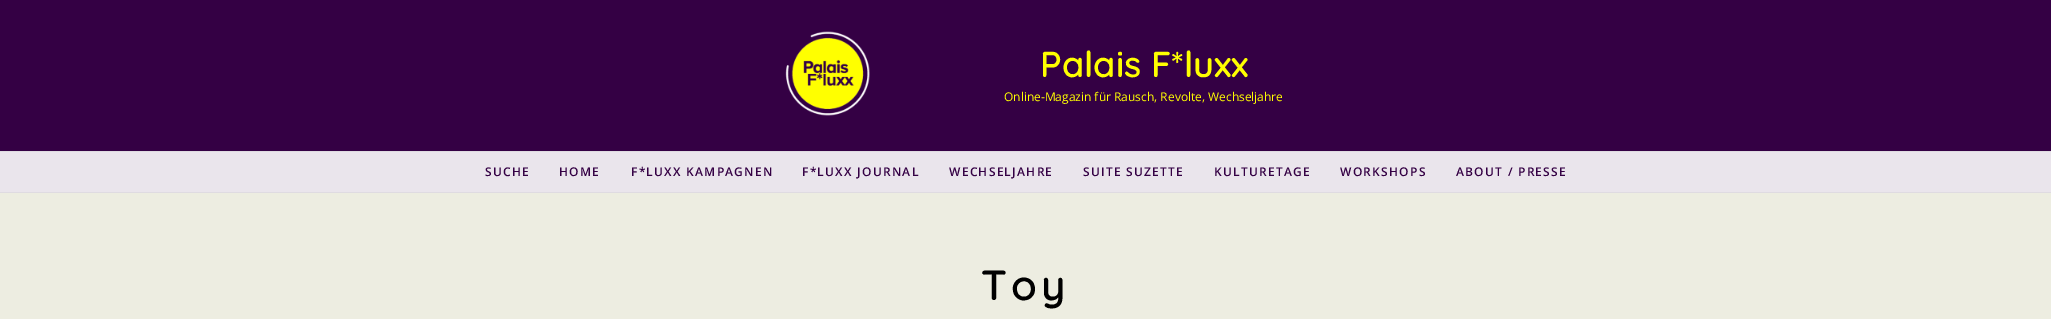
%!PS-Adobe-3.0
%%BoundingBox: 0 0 2051 319
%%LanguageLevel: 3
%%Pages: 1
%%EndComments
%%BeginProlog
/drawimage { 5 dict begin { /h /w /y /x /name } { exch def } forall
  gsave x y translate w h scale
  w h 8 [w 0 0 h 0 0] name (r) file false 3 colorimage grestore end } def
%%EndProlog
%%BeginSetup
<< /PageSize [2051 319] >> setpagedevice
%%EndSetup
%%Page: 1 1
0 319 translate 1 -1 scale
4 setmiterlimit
0.929 0.929 0.882 setrgbcolor
0 0 2051 319 rectfill
0.204 0 0.267 setrgbcolor
0 0 2051 151 rectfill
(images/1.raw) 785 31 85 85 drawimage
0.918 0.898 0.925 setrgbcolor
0 152 2051 40 rectfill
0.875 0.859 0.882 setrgbcolor
0 151 2051 1 rectfill
0 192 2051 1 rectfill
/Quicksand-SemiBold [36 0 0 -36 0 0] selectfont
1 1 0 setrgbcolor
1040 77 moveto (Palais F*luxx) show
/OpenSans-Regular [12 0 0 -12 0 0] selectfont
1004 101 moveto (Online-Magazin für Rausch, Revolte, Wechseljahre) show
/OpenSans-SemiBold [12 0 0 -12 0 0] selectfont
0.204 0 0.267 setrgbcolor
485 176 moveto 1.25 0 (SUCHE) ashow
559 176 moveto 1.25 0 (HOME) ashow
631 176 moveto 1.25 0 (F*LUXX KAMPAGNEN) ashow
802 176 moveto 1.25 0 (F*LUXX JOURNAL) ashow
949 176 moveto 1.25 0 (WECHSELJAHRE) ashow
1083 176 moveto 1.25 0 (SUITE SUZETTE) ashow
1214 176 moveto 1.25 0 (KULTURETAGE) ashow
1340 176 moveto 1.25 0 (WORKSHOPS) ashow
1456 176 moveto 1.25 0 (ABOUT / PRESSE) ashow
/Quicksand-SemiBold [42 0 0 -42 0 0] selectfont
0 setgray
981 300 moveto 4 0 (Toy) ashow
showpage
%%EOF
